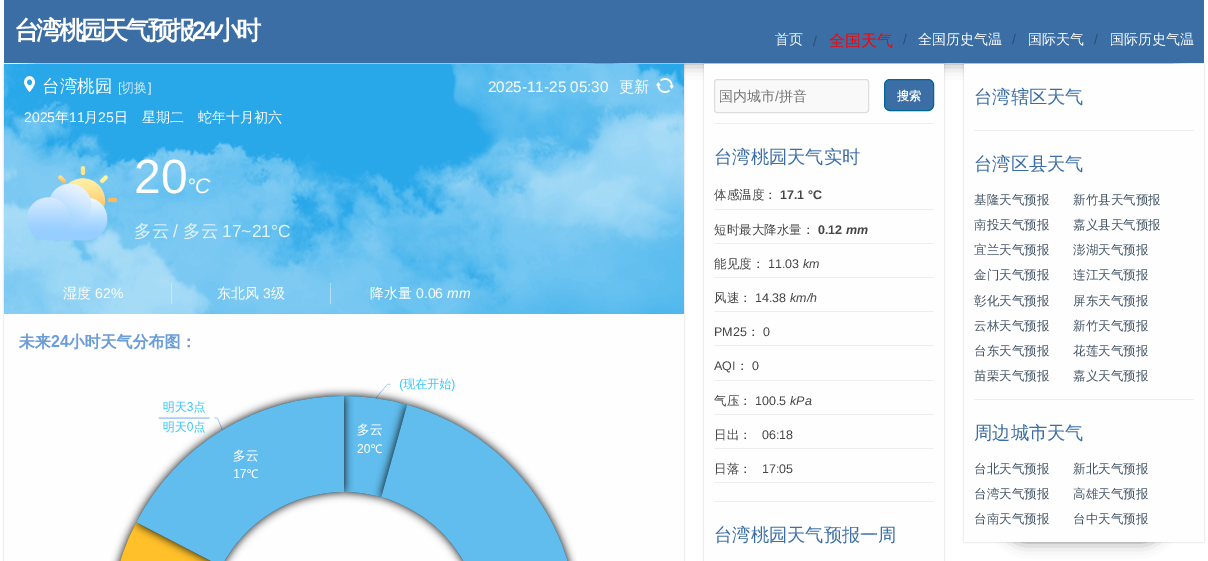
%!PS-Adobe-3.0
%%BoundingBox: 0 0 1208 561
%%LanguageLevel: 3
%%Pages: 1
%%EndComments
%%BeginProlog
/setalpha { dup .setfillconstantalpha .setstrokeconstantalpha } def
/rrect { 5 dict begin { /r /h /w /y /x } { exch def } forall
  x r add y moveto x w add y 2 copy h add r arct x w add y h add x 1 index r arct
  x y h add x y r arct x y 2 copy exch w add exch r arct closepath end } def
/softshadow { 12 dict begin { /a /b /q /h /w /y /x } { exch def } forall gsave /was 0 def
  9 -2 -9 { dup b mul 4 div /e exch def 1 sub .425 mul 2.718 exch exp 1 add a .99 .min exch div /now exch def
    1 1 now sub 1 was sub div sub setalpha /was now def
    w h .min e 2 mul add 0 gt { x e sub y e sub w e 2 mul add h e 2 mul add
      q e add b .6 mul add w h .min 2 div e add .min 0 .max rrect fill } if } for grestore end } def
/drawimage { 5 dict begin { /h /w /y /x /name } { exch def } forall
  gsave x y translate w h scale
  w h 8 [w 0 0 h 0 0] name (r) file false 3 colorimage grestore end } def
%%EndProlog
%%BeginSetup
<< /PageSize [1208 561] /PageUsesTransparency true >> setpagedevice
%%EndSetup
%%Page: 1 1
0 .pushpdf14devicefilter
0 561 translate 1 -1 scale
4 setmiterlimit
1 setgray
0 0 1208 561 rectfill
0 setgray
34 23 580 40 0 7.5 0.4 softshadow
594 23 580 40 0 7.5 0.4 softshadow
0.227 0.431 0.647 setrgbcolor
4 0 1200 63 rectfill
0 setgray
4 64 680 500 0 1 0.2 softshadow
0.996 setgray
4 314 680 247 rectfill
(images/1.raw) 4 64 680 250 drawimage
(images/2.raw) 24 76 11 16 drawimage
(images/3.raw) 656 78 18 15 drawimage
(images/4.raw) 27 166 91 75 drawimage
0.4 setalpha
1 setgray
171 283 1 21 rectfill
330 283 1 21 rectfill
1 setalpha
(images/5.raw) 18 333 559 228 drawimage
0 setgray
704 64 240 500 0 1 0.2 softshadow
0.996 setgray
704 64 240 497 rectfill
0.976 setgray
714.5 79.5 154 33 2.5 rrect gsave fill grestore
0.867 setgray
stroke
0.227 0.431 0.647 setrgbcolor
884.5 79.5 49 31 5.5 rrect gsave fill grestore
0 0.4 0.6 setrgbcolor
stroke
0.933 setgray
714 123 220 1 rectfill
714 209 220 1 rectfill
714 243 220 1 rectfill
714 277 220 1 rectfill
714 311 220 1 rectfill
714 345 220 1 rectfill
714 380 220 1 rectfill
714 414 220 1 rectfill
714 448 220 1 rectfill
714 482 220 1 rectfill
714 501 220 1 rectfill
0 setgray
964 64 240 478 0 1 0.2 softshadow
1004 492 160 50 25 7.5 0.4 softshadow
0.996 setgray
964 64 240 478 rectfill
0.933 setgray
974 130 220 1 rectfill
974 399 220 1 rectfill
/WenQuanYiZenHei-Bold [25.25 0 0 -25.25 0 0] selectfont
1 setgray
14 39 moveto -3 0 (台湾桃园天气预报) ashow
/LiberationSans-Bold [25.25 0 0 -25.25 0 0] selectfont
192 39 moveto -3 0 (24) ashow
/WenQuanYiZenHei-Bold [25.25 0 0 -25.25 0 0] selectfont
214 39 moveto -3 0 (小时) ashow
/WenQuanYiZenHei-Medium [14 0 0 -14 0 0] selectfont
775 44 moveto (首页) show
/LiberationSans-Regular [14 0 0 -14 0 0] selectfont
0.161 0.302 0.455 setrgbcolor
813 46 moveto (/) show
/WenQuanYiZenHei-Medium [16 0 0 -16 0 0] selectfont
1 0 0 setrgbcolor
829 46 moveto (全国天气) show
/LiberationSans-Regular [14 0 0 -14 0 0] selectfont
0.161 0.302 0.455 setrgbcolor
903 44 moveto (/) show
/WenQuanYiZenHei-Medium [14 0 0 -14 0 0] selectfont
1 setgray
918 44 moveto (全国历史气温) show
/LiberationSans-Regular [14 0 0 -14 0 0] selectfont
0.161 0.302 0.455 setrgbcolor
1012 44 moveto (/) show
/WenQuanYiZenHei-Medium [14 0 0 -14 0 0] selectfont
1 setgray
1028 44 moveto (国际天气) show
/LiberationSans-Regular [14 0 0 -14 0 0] selectfont
0.161 0.302 0.455 setrgbcolor
1094 44 moveto (/) show
/WenQuanYiZenHei-Medium [14 0 0 -14 0 0] selectfont
1 setgray
1110 44 moveto (国际历史气温) show
/WenQuanYiZenHei-Medium [17.5 0 0 -17.5 0 0] selectfont
42 92 moveto (台湾桃园) show
/LiberationSans-Regular [13 0 0 -13 0 0] selectfont
0.831 0.929 0.984 setrgbcolor
118 92 moveto ([) show
/WenQuanYiZenHei-Medium [13 0 0 -13 0 0] selectfont
121 92 moveto (切换) show
/LiberationSans-Regular [13 0 0 -13 0 0] selectfont
148 92 moveto (]) show
/LiberationSans-Regular [15.25 0 0 -15.25 0 0] selectfont
1 setgray
488 92 moveto (2025-11-25 05:30) show
/WenQuanYiZenHei-Medium [15.25 0 0 -15.25 0 0] selectfont
619 92 moveto (更新) show
/LiberationSans-Regular [14 0 0 -14 0 0] selectfont
24 122 moveto (2025) show
/WenQuanYiZenHei-Medium [14 0 0 -14 0 0] selectfont
55 122 moveto (年) show
/LiberationSans-Regular [14 0 0 -14 0 0] selectfont
69 122 moveto (11) show
/WenQuanYiZenHei-Medium [14 0 0 -14 0 0] selectfont
84 122 moveto (月) show
/LiberationSans-Regular [14 0 0 -14 0 0] selectfont
98 122 moveto (25) show
/WenQuanYiZenHei-Medium [14 0 0 -14 0 0] selectfont
114 122 moveto (日　星期二　蛇年十月初六) show
/LiberationSans-Regular [48 0 0 -48 0 0] selectfont
134 193 moveto (20) show
/LiberationSans-Italic [21 0 0 -21 0 0] selectfont
187 193 moveto (°C) show
/WenQuanYiZenHei-Medium [17.5 0 0 -17.5 0 0] selectfont
0.89 0.957 0.988 setrgbcolor
134 237 moveto (多云) show
/LiberationSans-Regular [17.5 0 0 -17.5 0 0] selectfont
173 237 moveto (/) show
/WenQuanYiZenHei-Medium [17.5 0 0 -17.5 0 0] selectfont
183 237 moveto (多云) show
/LiberationSans-Regular [17.5 0 0 -17.5 0 0] selectfont
222 237 moveto (17~21°C) show
/WenQuanYiZenHei-Medium [14 0 0 -14 0 0] selectfont
1 setgray
63 298 moveto (湿度) show
/LiberationSans-Regular [14 0 0 -14 0 0] selectfont
95 298 moveto (62%) show
/WenQuanYiZenHei-Medium [14 0 0 -14 0 0] selectfont
217 298 moveto (东北风) show
/LiberationSans-Regular [14 0 0 -14 0 0] selectfont
263 298 moveto (3) show
/WenQuanYiZenHei-Medium [14 0 0 -14 0 0] selectfont
271 298 moveto (级) show
370 298 moveto (降水量) show
/LiberationSans-Regular [14 0 0 -14 0 0] selectfont
416 298 moveto (0.06) show
/LiberationSans-Italic [14 0 0 -14 0 0] selectfont
447 298 moveto (mm) show
/WenQuanYiZenHei-Medium [14 0 0 -14 0 0] selectfont
0.459 setgray
719 101 moveto (国内城市) show
/LiberationSans-Regular [14 0 0 -14 0 0] selectfont
775 101 moveto (/) show
/WenQuanYiZenHei-Medium [14 0 0 -14 0 0] selectfont
779 101 moveto (拼音) show
/WenQuanYiZenHei-Bold [12 0 0 -12 0 0] selectfont
1 setgray
897 100 moveto (搜索) show
/WenQuanYiZenHei-Medium [18.25 0 0 -18.25 0 0] selectfont
0.227 0.431 0.647 setrgbcolor
714 163 moveto (台湾桃园天气实时) show
/WenQuanYiZenHei-Medium [12.5 0 0 -12.5 0 0] selectfont
0.267 setgray
714 199 moveto (体感温度：) show
/LiberationSans-Bold [12.5 0 0 -12.5 0 0] selectfont
780 199 moveto (17.1 °C) show
/WenQuanYiZenHei-Medium [12.5 0 0 -12.5 0 0] selectfont
714 234 moveto (短时最大降水量：) show
/LiberationSans-Bold [12.5 0 0 -12.5 0 0] selectfont
818 234 moveto (0.12) show
/LiberationSans-BoldItalic [12.5 0 0 -12.5 0 0] selectfont
846 234 moveto (mm) show
/WenQuanYiZenHei-Medium [12.5 0 0 -12.5 0 0] selectfont
714 268 moveto (能见度：) show
/LiberationSans-Regular [12.5 0 0 -12.5 0 0] selectfont
768 268 moveto (11.03) show
/LiberationSans-Italic [12.5 0 0 -12.5 0 0] selectfont
803 268 moveto (km) show
/WenQuanYiZenHei-Medium [12.5 0 0 -12.5 0 0] selectfont
714 302 moveto (风速：) show
/LiberationSans-Regular [12.5 0 0 -12.5 0 0] selectfont
755 302 moveto (14.38) show
/LiberationSans-Italic [12.5 0 0 -12.5 0 0] selectfont
790 302 moveto (km/h) show
/LiberationSans-Regular [12.5 0 0 -12.5 0 0] selectfont
714 336 moveto (PM25) show
/WenQuanYiZenHei-Medium [12.5 0 0 -12.5 0 0] selectfont
747 336 moveto (：) show
/LiberationSans-Regular [12.5 0 0 -12.5 0 0] selectfont
763 336 moveto (0) show
714 370 moveto (AQI) show
/WenQuanYiZenHei-Medium [12.5 0 0 -12.5 0 0] selectfont
736 370 moveto (：) show
/LiberationSans-Regular [12.5 0 0 -12.5 0 0] selectfont
752 370 moveto (0) show
/WenQuanYiZenHei-Medium [12.5 0 0 -12.5 0 0] selectfont
714 405 moveto (气压：) show
/LiberationSans-Regular [12.5 0 0 -12.5 0 0] selectfont
755 405 moveto (100.5) show
/LiberationSans-Italic [12.5 0 0 -12.5 0 0] selectfont
790 405 moveto (kPa) show
/WenQuanYiZenHei-Medium [12.5 0 0 -12.5 0 0] selectfont
714 439 moveto (日出：) show
/LiberationSans-Regular [12.5 0 0 -12.5 0 0] selectfont
762 439 moveto (06:18) show
/WenQuanYiZenHei-Medium [12.5 0 0 -12.5 0 0] selectfont
714 473 moveto (日落：) show
/LiberationSans-Regular [12.5 0 0 -12.5 0 0] selectfont
762 473 moveto (17:05) show
/WenQuanYiZenHei-Medium [18.25 0 0 -18.25 0 0] selectfont
0.227 0.431 0.647 setrgbcolor
714 541 moveto (台湾桃园天气预报一周) show
974 103 moveto (台湾辖区天气) show
974 170 moveto (台湾区县天气) show
/WenQuanYiZenHei-Medium [12.5 0 0 -12.5 0 0] selectfont
0.267 0.333 0.4 setrgbcolor
974 204 moveto (基隆天气预报) show
1073 204 moveto (新竹县天气预报) show
974 229 moveto (南投天气预报) show
1073 229 moveto (嘉义县天气预报) show
974 254 moveto (宜兰天气预报) show
1073 254 moveto (澎湖天气预报) show
974 279 moveto (金门天气预报) show
1073 279 moveto (连江天气预报) show
974 305 moveto (彰化天气预报) show
1073 305 moveto (屏东天气预报) show
974 330 moveto (云林天气预报) show
1073 330 moveto (新竹天气预报) show
974 355 moveto (台东天气预报) show
1073 355 moveto (花莲天气预报) show
974 380 moveto (苗栗天气预报) show
1073 380 moveto (嘉义天气预报) show
/WenQuanYiZenHei-Medium [18.25 0 0 -18.25 0 0] selectfont
0.227 0.431 0.647 setrgbcolor
974 439 moveto (周边城市天气) show
/WenQuanYiZenHei-Medium [12.5 0 0 -12.5 0 0] selectfont
0.267 0.333 0.4 setrgbcolor
974 473 moveto (台北天气预报) show
1073 473 moveto (新北天气预报) show
974 498 moveto (台湾天气预报) show
1073 498 moveto (高雄天气预报) show
974 523 moveto (台南天气预报) show
1073 523 moveto (台中天气预报) show
.poppdf14devicefilter showpage
%%EOF
